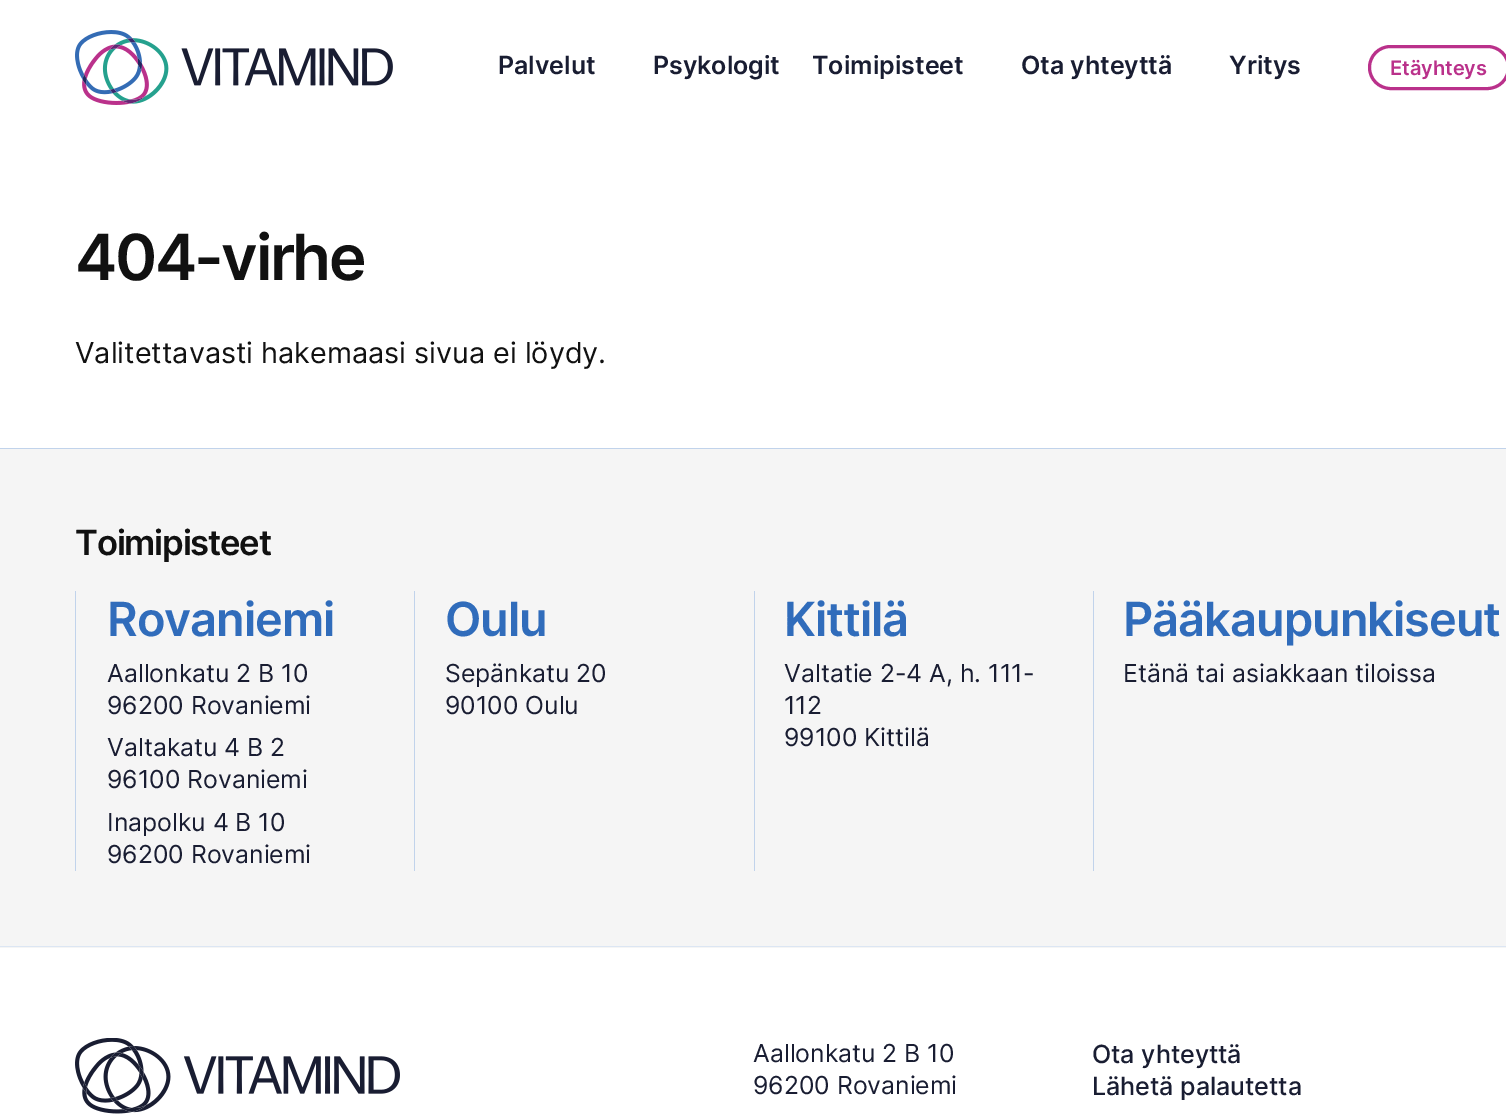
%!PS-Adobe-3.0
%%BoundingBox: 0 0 1506 1118
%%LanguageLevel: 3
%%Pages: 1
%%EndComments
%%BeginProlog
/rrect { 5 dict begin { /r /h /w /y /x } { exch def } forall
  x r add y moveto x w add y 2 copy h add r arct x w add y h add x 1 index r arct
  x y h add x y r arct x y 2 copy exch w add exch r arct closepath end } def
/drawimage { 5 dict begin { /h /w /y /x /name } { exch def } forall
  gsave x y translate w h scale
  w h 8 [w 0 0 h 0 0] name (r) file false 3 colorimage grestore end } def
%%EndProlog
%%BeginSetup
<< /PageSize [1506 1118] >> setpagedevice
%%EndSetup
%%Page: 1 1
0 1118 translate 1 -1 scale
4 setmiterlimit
0.961 setgray
0 0 1506 1118 rectfill
1 setgray
0 0 1506 448 rectfill
(images/1.raw) 75 30 318 75 drawimage
0.729 0.192 0.545 setrgbcolor
3 setlinewidth
1369.5 46.5 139 42 21 rrect stroke
0.757 0.827 0.922 setrgbcolor
0 448 1506 1 rectfill
0.863 0.902 0.953 setrgbcolor
0 946 1506 1 rectfill
0.757 0.827 0.922 setrgbcolor
75 591 1 280 rectfill
414 591 1 280 rectfill
754 591 1 280 rectfill
1093 591 1 280 rectfill
1 setgray
0 948 1506 170 rectfill
(images/2.raw) 75 1038 325 76 drawimage
/Inter-SemiBold [25 0 0 -25 0 0] selectfont
0.098 0.114 0.196 setrgbcolor
498 74 moveto (Palvelut) show
653 74 moveto (Psykologit) show
812 74 moveto (Toimipisteet) show
1021 74 moveto (Ota yhteyttä) show
1229 74 moveto (Yritys) show
/Inter-SemiBold [20 0 0 -20 0 0] selectfont
0.729 0.192 0.545 setrgbcolor
1390 75 moveto (Etäyhteys) show
/Inter-SemiBold [63.5 0 0 -63.5 0 0] selectfont
0.067 setgray
75 280 moveto -2.5 0 (404-virhe) ashow
/Inter-Regular [28.75 0 0 -28.75 0 0] selectfont
75 363 moveto (Valitettavasti hakemaasi sivua ei löydy.) show
/Inter-SemiBold [34.75 0 0 -34.75 0 0] selectfont
75 555 moveto -1.25 0 (Toimipisteet) ashow
/Inter-SemiBold [47 0 0 -47 0 0] selectfont
0.188 0.424 0.733 setrgbcolor
107 636 moveto -1 0 (Rovaniemi) ashow
/Inter-Regular [24.75 0 0 -24.75 0 0] selectfont
0.098 0.114 0.196 setrgbcolor
107 682 moveto (Aallonkatu 2 B 10) show
107 714 moveto (96200 Rovaniemi) show
107 756 moveto (Valtakatu 4 B 2) show
107 788 moveto (96100 Rovaniemi) show
107 831 moveto (Inapolku 4 B 10) show
107 863 moveto (96200 Rovaniemi) show
/Inter-SemiBold [47 0 0 -47 0 0] selectfont
0.188 0.424 0.733 setrgbcolor
445 636 moveto -1 0 (Oulu) ashow
/Inter-Regular [24.75 0 0 -24.75 0 0] selectfont
0.098 0.114 0.196 setrgbcolor
445 682 moveto (Sepänkatu 20) show
445 714 moveto (90100 Oulu) show
/Inter-SemiBold [47 0 0 -47 0 0] selectfont
0.188 0.424 0.733 setrgbcolor
784 636 moveto -1 0 (Kittilä) ashow
/Inter-Regular [24.75 0 0 -24.75 0 0] selectfont
0.098 0.114 0.196 setrgbcolor
784 682 moveto (Valtatie 2-4 A, h. 111-) show
784 714 moveto (112) show
784 746 moveto (99100 Kittilä) show
/Inter-SemiBold [47 0 0 -47 0 0] selectfont
0.188 0.424 0.733 setrgbcolor
1123 636 moveto -1 0 (Pääkaupunkiseut) ashow
/Inter-Regular [24.75 0 0 -24.75 0 0] selectfont
0.098 0.114 0.196 setrgbcolor
1123 682 moveto (Etänä tai asiakkaan tiloissa) show
753 1062 moveto (Aallonkatu 2 B 10) show
753 1094 moveto (96200 Rovaniemi) show
/Inter-Medium [25 0 0 -25 0 0] selectfont
1092 1063 moveto (Ota yhteyttä) show
1092 1095 moveto (Lähetä palautetta) show
showpage
%%EOF
